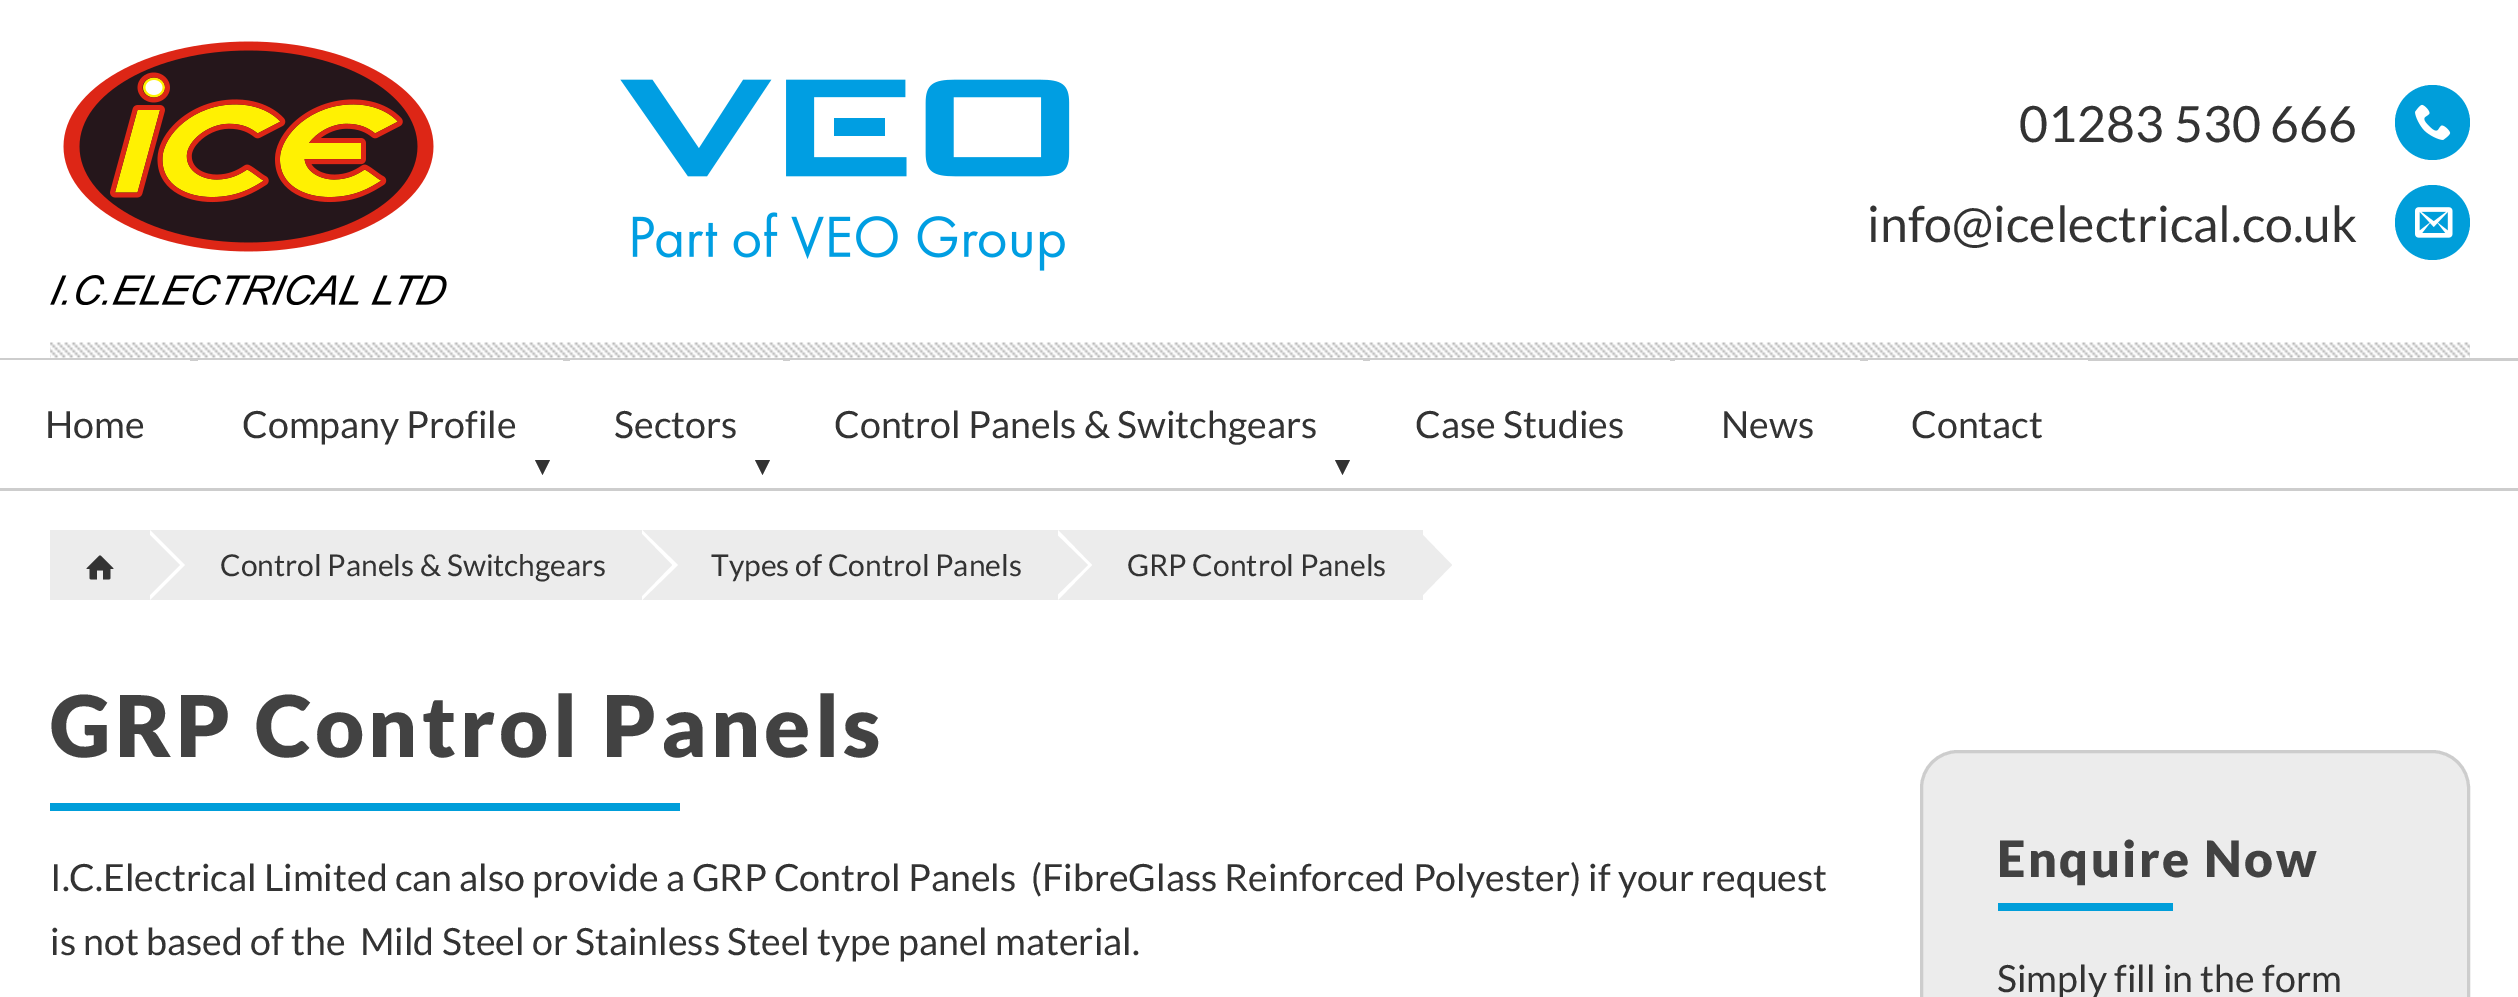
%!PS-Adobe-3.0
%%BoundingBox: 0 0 2518 997
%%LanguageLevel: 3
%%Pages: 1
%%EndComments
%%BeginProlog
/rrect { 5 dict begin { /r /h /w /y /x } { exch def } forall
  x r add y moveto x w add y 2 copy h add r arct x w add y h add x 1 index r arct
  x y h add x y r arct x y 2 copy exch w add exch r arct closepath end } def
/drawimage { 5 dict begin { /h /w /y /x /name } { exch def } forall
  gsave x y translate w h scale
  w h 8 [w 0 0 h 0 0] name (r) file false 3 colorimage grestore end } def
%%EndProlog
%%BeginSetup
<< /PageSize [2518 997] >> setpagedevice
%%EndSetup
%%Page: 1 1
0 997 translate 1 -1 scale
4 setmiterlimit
1 setgray
0 0 2518 997 rectfill
0.804 setgray
0 358 2518 3 rectfill
(images/1.raw) 50 342 2420 16 drawimage
(images/2.raw) 63 41 371 211 drawimage
(images/3.raw) 50 275 397 30 drawimage
(images/4.raw) 620 79 450 98 drawimage
(images/5.raw) 632 212 433 59 drawimage
0 0.62 0.855 setrgbcolor
newpath 2432.5 122.5 37.5 0 360 arc closepath fill
(images/6.raw) 2415 104 36 36 drawimage
newpath 2432.5 222.5 37.5 0 360 arc closepath fill
(images/7.raw) 2415 207 38 31 drawimage
0.804 setgray
0 488 2518 3 rectfill
1 setgray
0 360 190 1 rectfill
198 360 365 1 rectfill
0.2 setgray
newpath 535 460 moveto 550 460 lineto 542.5 475 lineto closepath fill
1 setgray
570 360 213 1 rectfill
0.2 setgray
newpath 755 460 moveto 770 460 lineto 762.5 475 lineto closepath fill
1 setgray
790 360 573 1 rectfill
0.2 setgray
newpath 1335 460 moveto 1350 460 lineto 1342.5 475 lineto closepath fill
1 setgray
1370 360 300 1 rectfill
1675 360 185 1 rectfill
1868 360 220 1 rectfill
0.925 setgray
50 530 1373 70 rectfill
(images/8.raw) 86 555 28 25 drawimage
1 setgray
newpath 150 600 moveto 150 530 lineto 185 565 lineto closepath fill
0.925 setgray
newpath 145 600 moveto 145 530 lineto 180 565 lineto closepath fill
1 setgray
newpath 642 600 moveto 642 530 lineto 678 565 lineto closepath fill
0.925 setgray
newpath 638 600 moveto 638 530 lineto 672 565 lineto closepath fill
1 setgray
newpath 1058 600 moveto 1058 530 lineto 1092 565 lineto closepath fill
0.925 setgray
newpath 1052 600 moveto 1052 530 lineto 1088 565 lineto closepath fill
newpath 1418 600 moveto 1418 530 lineto 1452 565 lineto closepath fill
0 0.62 0.855 setrgbcolor
50 803 630 8 rectfill
0.925 setgray
1921.5 751.5 547 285 36.5 rrect gsave fill grestore
0.804 setgray
3 setlinewidth
stroke
0 0.62 0.855 setrgbcolor
1998 903 175 8 rectfill
/Lato-Regular [50 0 0 -50 0 0] selectfont
0.2 setgray
2019 142 moveto (01283 530 666) show
1867 242 moveto (info@icelectrical.co.uk) show
/Lato-Regular [37.5 0 0 -37.5 0 0] selectfont
45 438 moveto (Home) show
242 438 moveto (Company Profile) show
614 438 moveto (Sectors) show
834 438 moveto (Control Panels & Switchgears) show
1415 438 moveto (Case Studies) show
1721 438 moveto (News) show
1911 438 moveto (Contact) show
/Lato-Regular [30 0 0 -30 0 0] selectfont
220 576 moveto (Control Panels & Switchgears) show
711 576 moveto (Types of Control Panels) show
1127 576 moveto (GRP Control Panels) show
/Lato-Black [85 0 0 -85 0 0] selectfont
0.259 setgray
50 757 moveto 4.25 0 (GRP Control Panels) ashow
/Lato-Regular [37.5 0 0 -37.5 0 0] selectfont
0.2 setgray
50 891 moveto (I.C.Electrical Limited can also provide a GRP Control Panels  \(FibreGlass Reinforced Polyester\) if your request) show
50 955 moveto (is not based of the  Mild Steel or Stainless Steel type panel material.) show
/Lato-Black [50 0 0 -50 0 0] selectfont
0.259 setgray
1997 877 moveto 2.5 0 (Enquire Now) ashow
/Lato-Regular [37.5 0 0 -37.5 0 0] selectfont
0.2 setgray
1997 992 moveto (Simply fill in the form) show
showpage
%%EOF
